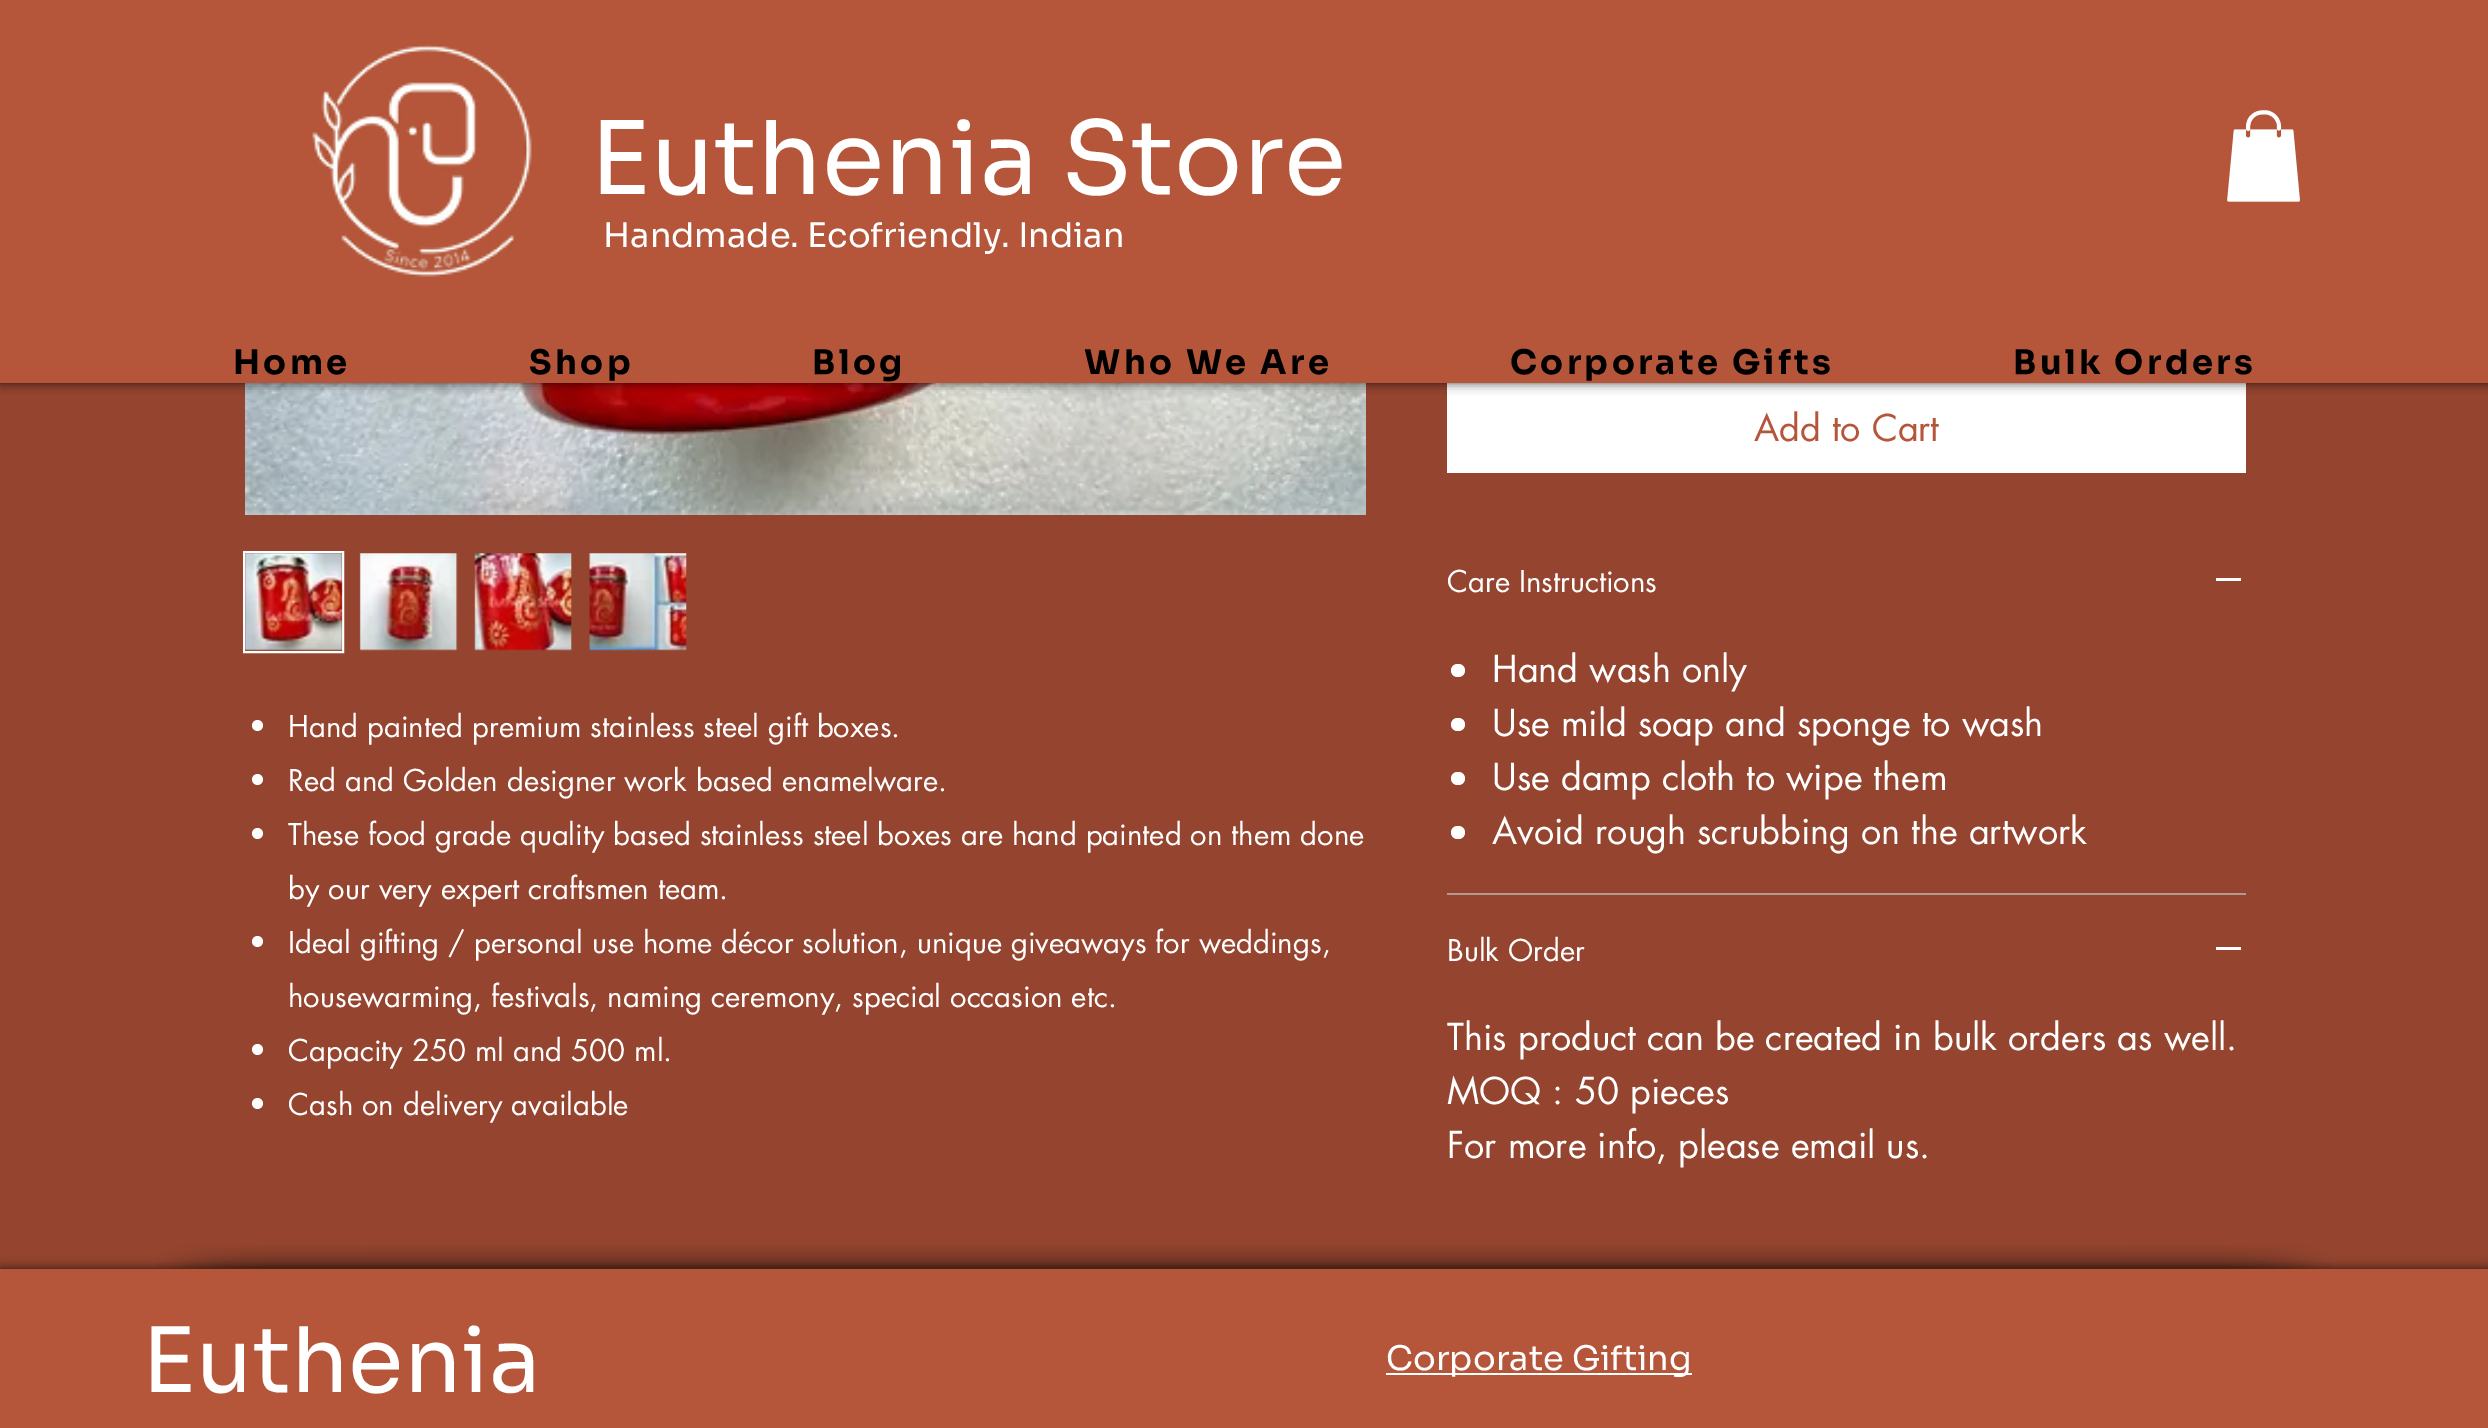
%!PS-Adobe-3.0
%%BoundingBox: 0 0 2488 1428
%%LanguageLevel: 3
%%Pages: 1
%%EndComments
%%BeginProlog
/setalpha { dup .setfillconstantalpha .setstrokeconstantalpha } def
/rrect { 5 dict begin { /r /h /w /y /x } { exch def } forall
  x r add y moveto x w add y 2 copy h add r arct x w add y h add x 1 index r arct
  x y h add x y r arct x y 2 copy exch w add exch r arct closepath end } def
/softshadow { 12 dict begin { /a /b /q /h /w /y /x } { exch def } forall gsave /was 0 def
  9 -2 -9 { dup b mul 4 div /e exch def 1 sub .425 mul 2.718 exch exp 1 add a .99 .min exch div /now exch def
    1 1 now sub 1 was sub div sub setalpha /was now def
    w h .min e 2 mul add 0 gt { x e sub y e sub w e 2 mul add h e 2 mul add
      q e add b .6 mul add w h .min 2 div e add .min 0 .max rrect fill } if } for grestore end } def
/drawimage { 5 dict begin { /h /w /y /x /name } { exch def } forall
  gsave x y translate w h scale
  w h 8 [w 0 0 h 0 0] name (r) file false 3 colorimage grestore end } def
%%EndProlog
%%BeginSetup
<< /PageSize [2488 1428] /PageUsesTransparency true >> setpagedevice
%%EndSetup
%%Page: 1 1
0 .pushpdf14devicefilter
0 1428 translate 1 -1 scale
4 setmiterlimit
0.584 0.271 0.184 setrgbcolor
0 0 2488 1428 rectfill
(images/3.raw) 245 383 1121 132 drawimage
1 setgray
1447 383 799 90 rectfill
0 setgray
0 0 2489 383 0 5.5 0.7 softshadow
0.71 0.333 0.227 setrgbcolor
0 0 2488 383 rectfill
(images/1.raw) 312 44 220 233 drawimage
(images/2.raw) 2227 110 73 92 drawimage
1 setgray
2 setlinewidth
244 552 99 100 rectstroke
(images/4.raw) 245 553 98 98 drawimage
(images/5.raw) 359 553 99 98 drawimage
(images/6.raw) 474 553 98 98 drawimage
(images/7.raw) 589 553 98 98 drawimage
newpath 257.5 725.5 5.5 0 360 arc closepath fill
newpath 257.5 779.5 5.5 0 360 arc closepath fill
newpath 257.5 833.5 5.5 0 360 arc closepath fill
newpath 257.5 941.5 5.5 0 360 arc closepath fill
newpath 257.5 1049.5 5.5 0 360 arc closepath fill
newpath 257.5 1103.5 5.5 0 360 arc closepath fill
0.702 0.6 0.569 setrgbcolor
1447 893 799 2 rectfill
1 setgray
2216 578 25 3 rectfill
1451 664 14 13 6.5 rrect fill
1451 718 14 13 6.5 rrect fill
1451 772 14 13 6.5 rrect fill
1451 826 14 13 6.5 rrect fill
2216 947 25 3 rectfill
0 setgray
0 1269 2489 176 0 5.5 0.7 softshadow
0.71 0.333 0.227 setrgbcolor
0 1269 2488 159 rectfill
(images/8.raw) 157 1244 210 25 drawimage
(images/9.raw) 366 1244 1756 25 drawimage
(images/10.raw) 2121 1244 211 25 drawimage
1 setgray
1386 1373 306 2 rectfill
/Sora-Regular [101.25 0 0 -101.25 0 0] selectfont
590 194 moveto (Euthenia Store) show
/Sora-Regular [33.75 0 0 -33.75 0 0] selectfont
603 247 moveto (Handmade. Ecofriendly. Indian) show
/Sora-Bold [33.75 0 0 -33.75 0 0] selectfont
0 setgray
233 374 moveto 3.4 0 (Home) ashow
529 374 moveto 3.4 0 (Shop) ashow
812 374 moveto 3.4 0 (Blog) ashow
1084 374 moveto 3.4 0 (Who We Are) ashow
1510 374 moveto 3.4 0 (Corporate Gifts) ashow
2013 374 moveto 3.4 0 (Bulk Orders) ashow
/futura-Regular [29.25 0 0 -29.25 0 0] selectfont
1 setgray
288 737 moveto (Hand painted premium stainless steel gift boxes.) show
288 791 moveto (Red and Golden designer work based enamelware.) show
288 845 moveto (These food grade quality based stainless steel boxes are hand painted on them done) show
288 899 moveto (by our very expert craftsmen team.) show
288 953 moveto (Ideal gifting / personal use home décor solution, unique giveaways for weddings,) show
288 1007 moveto (housewarming, festivals, naming ceremony, special occasion etc.) show
288 1061 moveto (Capacity 250 ml and 500 ml.) show
288 1115 moveto (Cash on delivery available) show
/futura-Regular [36 0 0 -36 0 0] selectfont
0.71 0.333 0.227 setrgbcolor
1754 441 moveto (Add to Cart) show
/futura-Regular [29.25 0 0 -29.25 0 0] selectfont
1 setgray
1447 592 moveto (Care Instructions) show
/futura-Regular [36 0 0 -36 0 0] selectfont
1492 682 moveto (Hand wash only) show
1492 736 moveto (Use mild soap and sponge to wash) show
1492 790 moveto (Use damp cloth to wipe them) show
1492 844 moveto (Avoid rough scrubbing on the artwork) show
/futura-Regular [29.25 0 0 -29.25 0 0] selectfont
1447 961 moveto (Bulk Order) show
/futura-Regular [36 0 0 -36 0 0] selectfont
1447 1050 moveto (This product can be created in bulk orders as well.) show
1447 1104 moveto (MOQ : 50 pieces) show
1447 1158 moveto (For more info, please email us.) show
/Sora-Regular [90 0 0 -90 0 0] selectfont
142 1392 moveto (Euthenia) show
/Sora-Regular [33.75 0 0 -33.75 0 0] selectfont
1386 1370 moveto (Corporate Gifting) show
.poppdf14devicefilter showpage
%%EOF
